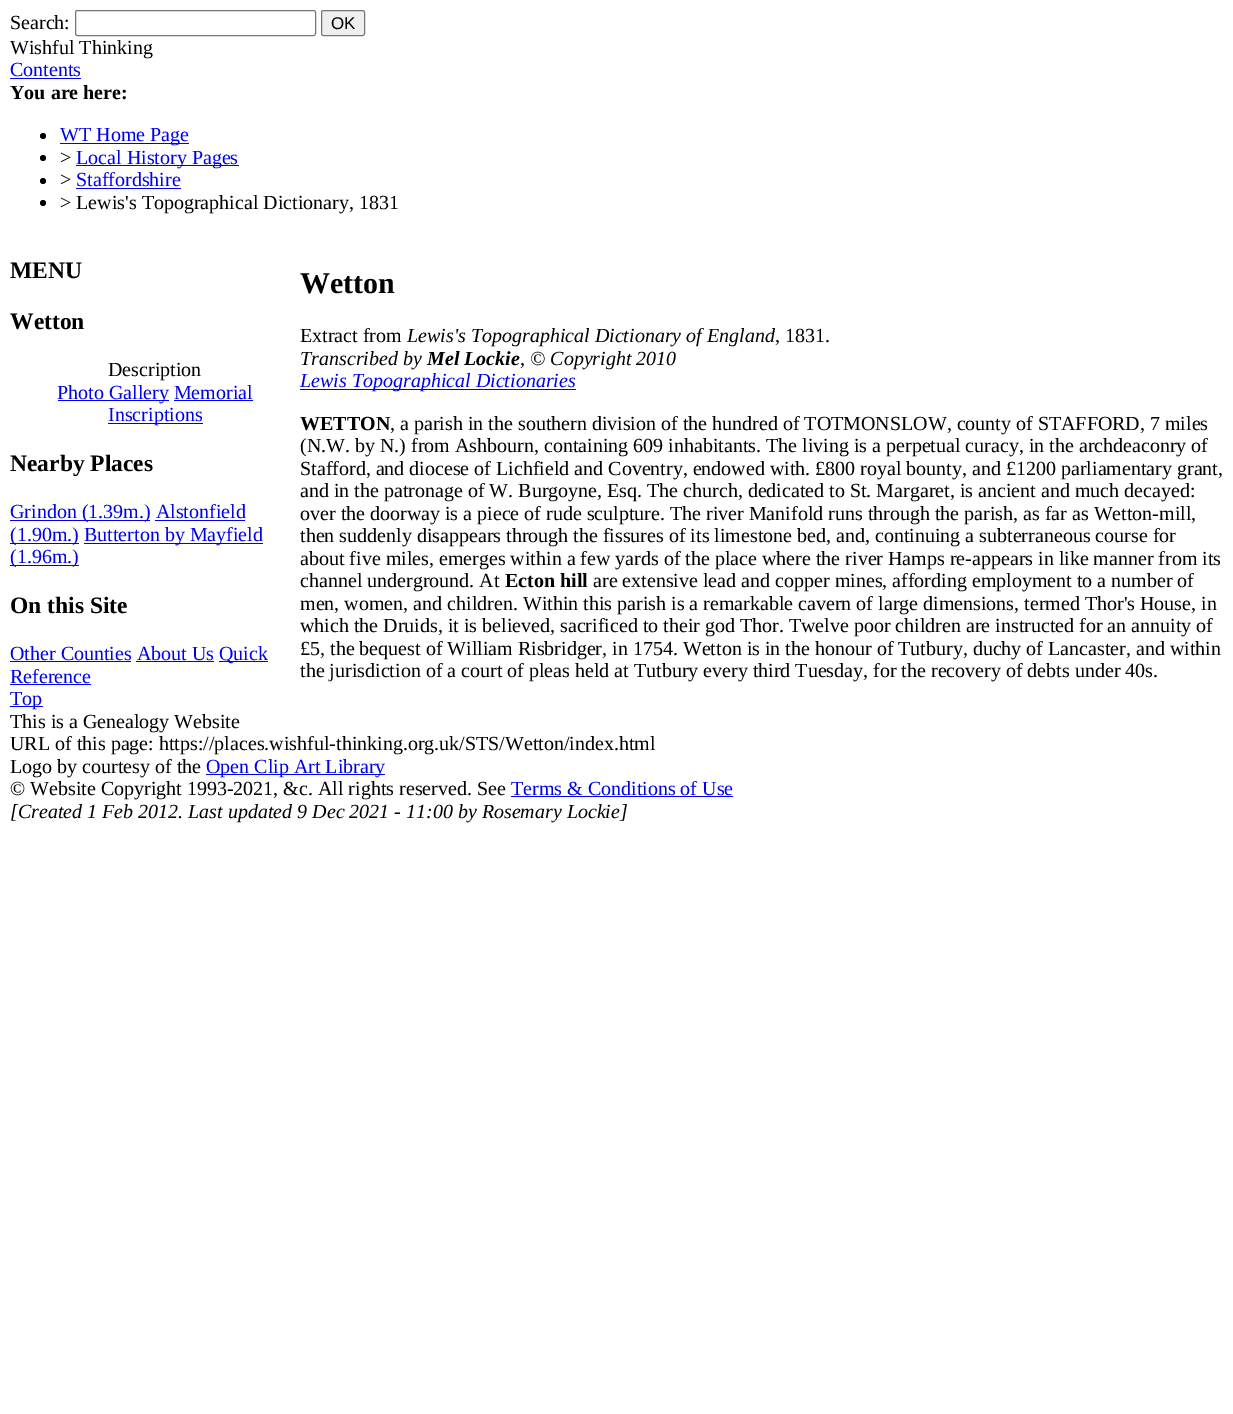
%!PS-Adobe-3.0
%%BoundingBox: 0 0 1233 1414
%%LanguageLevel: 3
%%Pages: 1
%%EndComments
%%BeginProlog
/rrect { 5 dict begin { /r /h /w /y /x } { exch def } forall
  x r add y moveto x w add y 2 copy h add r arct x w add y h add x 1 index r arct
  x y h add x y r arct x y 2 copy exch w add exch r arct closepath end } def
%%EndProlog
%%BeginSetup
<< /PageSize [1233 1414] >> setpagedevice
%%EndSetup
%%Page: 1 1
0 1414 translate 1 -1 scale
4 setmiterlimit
1 setgray
0 0 1233 1414 rectfill
0.463 setgray
75.5 10.5 240 25 2 rrect stroke
0.937 setgray
321.5 10.5 43 25 2 rrect gsave fill grestore
0.463 setgray
stroke
0 0 0.933 setrgbcolor
10 78 71 1 rectfill
0 setgray
newpath 43 136 3 0 360 arc closepath fill
0 0 0.933 setrgbcolor
60 143 129 1 rectfill
0 setgray
newpath 43 158 3 0 360 arc closepath fill
0 0 0.933 setrgbcolor
76 165 163 1 rectfill
0 setgray
newpath 43 181 3 0 360 arc closepath fill
0 0 0.933 setrgbcolor
76 188 105 1 rectfill
0 setgray
newpath 43 203 3 0 360 arc closepath fill
0 0 0.933 setrgbcolor
58 400 111 1 rectfill
174 400 79 1 rectfill
108 423 95 1 rectfill
10 520 140 1 rectfill
155 520 90 1 rectfill
10 543 69 1 rectfill
84 543 179 1 rectfill
10 565 69 1 rectfill
10 661 121 1 rectfill
219 661 49 1 rectfill
136 661 78 1 rectfill
10 684 81 1 rectfill
300 389 276 1 rectfill
10 706 33 1 rectfill
206 774 179 1 rectfill
511 796 222 1 rectfill
/LiberationSerif-Regular [20 0 0 -20 0 0] selectfont
0 setgray
10 29 moveto (Search:) show
/LiberationSans-Regular [17 0 0 -17 0 0] selectfont
331 29 moveto (OK) show
/LiberationSerif-Regular [20 0 0 -20 0 0] selectfont
10 54 moveto (Wishful Thinking) show
0 0 0.933 setrgbcolor
10 76 moveto (Contents) show
/LiberationSerif-Bold [20 0 0 -20 0 0] selectfont
0 setgray
10 99 moveto (You are here:) show
/LiberationSerif-Regular [20 0 0 -20 0 0] selectfont
0 0 0.933 setrgbcolor
60 141 moveto (WT Home Page) show
0 setgray
60 164 moveto (>) show
0 0 0.933 setrgbcolor
76 164 moveto (Local History Pages) show
0 setgray
60 186 moveto (>) show
0 0 0.933 setrgbcolor
76 186 moveto (Staffordshire) show
0 setgray
60 209 moveto (> Lewis's Topographical Dictionary, 1831) show
/LiberationSerif-Bold [23.5 0 0 -23.5 0 0] selectfont
10 278 moveto (MENU) show
10 329 moveto (Wetton) show
/LiberationSerif-Regular [20 0 0 -20 0 0] selectfont
108 376 moveto (Description) show
0 0 0.933 setrgbcolor
57 399 moveto (Photo Gallery Memorial) show
108 421 moveto (Inscriptions) show
/LiberationSerif-Bold [23.5 0 0 -23.5 0 0] selectfont
0 setgray
10 471 moveto (Nearby Places) show
/LiberationSerif-Regular [20 0 0 -20 0 0] selectfont
0 0 0.933 setrgbcolor
10 518 moveto (Grindon \(1.39m.\) Alstonfield) show
10 541 moveto (\(1.90m.\)) show
84 541 moveto (Butterton by Mayfield) show
10 563 moveto (\(1.96m.\)) show
/LiberationSerif-Bold [23.5 0 0 -23.5 0 0] selectfont
0 setgray
10 613 moveto (On this Site) show
/LiberationSerif-Regular [20 0 0 -20 0 0] selectfont
0 0 0.933 setrgbcolor
10 660 moveto (Other Counties About Us) show
219 660 moveto (Quick) show
10 683 moveto (Reference) show
/LiberationSerif-Bold [30 0 0 -30 0 0] selectfont
0 setgray
300 293 moveto (Wetton) show
/LiberationSerif-Regular [20 0 0 -20 0 0] selectfont
300 342 moveto (Extract from) show
/LiberationSerif-Italic [20 0 0 -20 0 0] selectfont
407 342 moveto (Lewis's Topographical Dictionary of England) show
/LiberationSerif-Regular [20 0 0 -20 0 0] selectfont
775 342 moveto (, 1831.) show
/LiberationSerif-Italic [20 0 0 -20 0 0] selectfont
300 365 moveto (Transcribed by) show
/LiberationSerif-BoldItalic [20 0 0 -20 0 0] selectfont
427 365 moveto (Mel Lockie) show
/LiberationSerif-Italic [20 0 0 -20 0 0] selectfont
520 365 moveto (, © Copyright 2010) show
0 0 0.933 setrgbcolor
300 387 moveto (Lewis Topographical Dictionaries) show
/LiberationSerif-Bold [20 0 0 -20 0 0] selectfont
0 setgray
300 430 moveto (WETTON) show
/LiberationSerif-Regular [20 0 0 -20 0 0] selectfont
390 430 moveto (, a parish in the southern division of the hundred of TOTMONSLOW, county of STAFFORD, 7 miles) show
300 452 moveto (\(N.W. by N.\) from Ashbourn, containing 609 inhabitants. The living is a perpetual curacy, in the archdeaconry of) show
300 475 moveto (Stafford, and diocese of Lichfield and Coventry, endowed with. £800 royal bounty, and £1200 parliamentary grant,) show
300 497 moveto (and in the patronage of W. Burgoyne, Esq. The church, dedicated to St. Margaret, is ancient and much decayed:) show
300 520 moveto (over the doorway is a piece of rude sculpture. The river Manifold runs through the parish, as far as Wetton-mill,) show
300 542 moveto (then suddenly disappears through the fissures of its limestone bed, and, continuing a subterraneous course for) show
300 565 moveto (about five miles, emerges within a few yards of the place where the river Hamps re-appears in like manner from its) show
300 587 moveto (channel underground. At) show
/LiberationSerif-Bold [20 0 0 -20 0 0] selectfont
505 587 moveto (Ecton hill) show
/LiberationSerif-Regular [20 0 0 -20 0 0] selectfont
593 587 moveto (are extensive lead and copper mines, affording employment to a number of) show
300 610 moveto (men, women, and children. Within this parish is a remarkable cavern of large dimensions, termed Thor's House, in) show
300 632 moveto (which the Druids, it is believed, sacrificed to their god Thor. Twelve poor children are instructed for an annuity of) show
300 655 moveto (£5, the bequest of William Risbridger, in 1754. Wetton is in the honour of Tutbury, duchy of Lancaster, and within) show
300 677 moveto (the jurisdiction of a court of pleas held at Tutbury every third Tuesday, for the recovery of debts under 40s.) show
0 0 0.933 setrgbcolor
10 705 moveto (Top) show
0 setgray
10 728 moveto (This is a Genealogy Website) show
10 750 moveto (URL of this page: https://places.wishful-thinking.org.uk/STS/Wetton/index.html) show
10 773 moveto (Logo by courtesy of the) show
0 0 0.933 setrgbcolor
206 773 moveto (Open Clip Art Library) show
0 setgray
10 795 moveto (© Website Copyright 1993-2021, &c. All rights reserved. See) show
0 0 0.933 setrgbcolor
511 795 moveto (Terms & Conditions of Use) show
/LiberationSerif-Italic [20 0 0 -20 0 0] selectfont
0 setgray
10 818 moveto ([Created 1 Feb 2012. Last updated 9 Dec 2021 - 11:00 by Rosemary Lockie]) show
showpage
%%EOF
